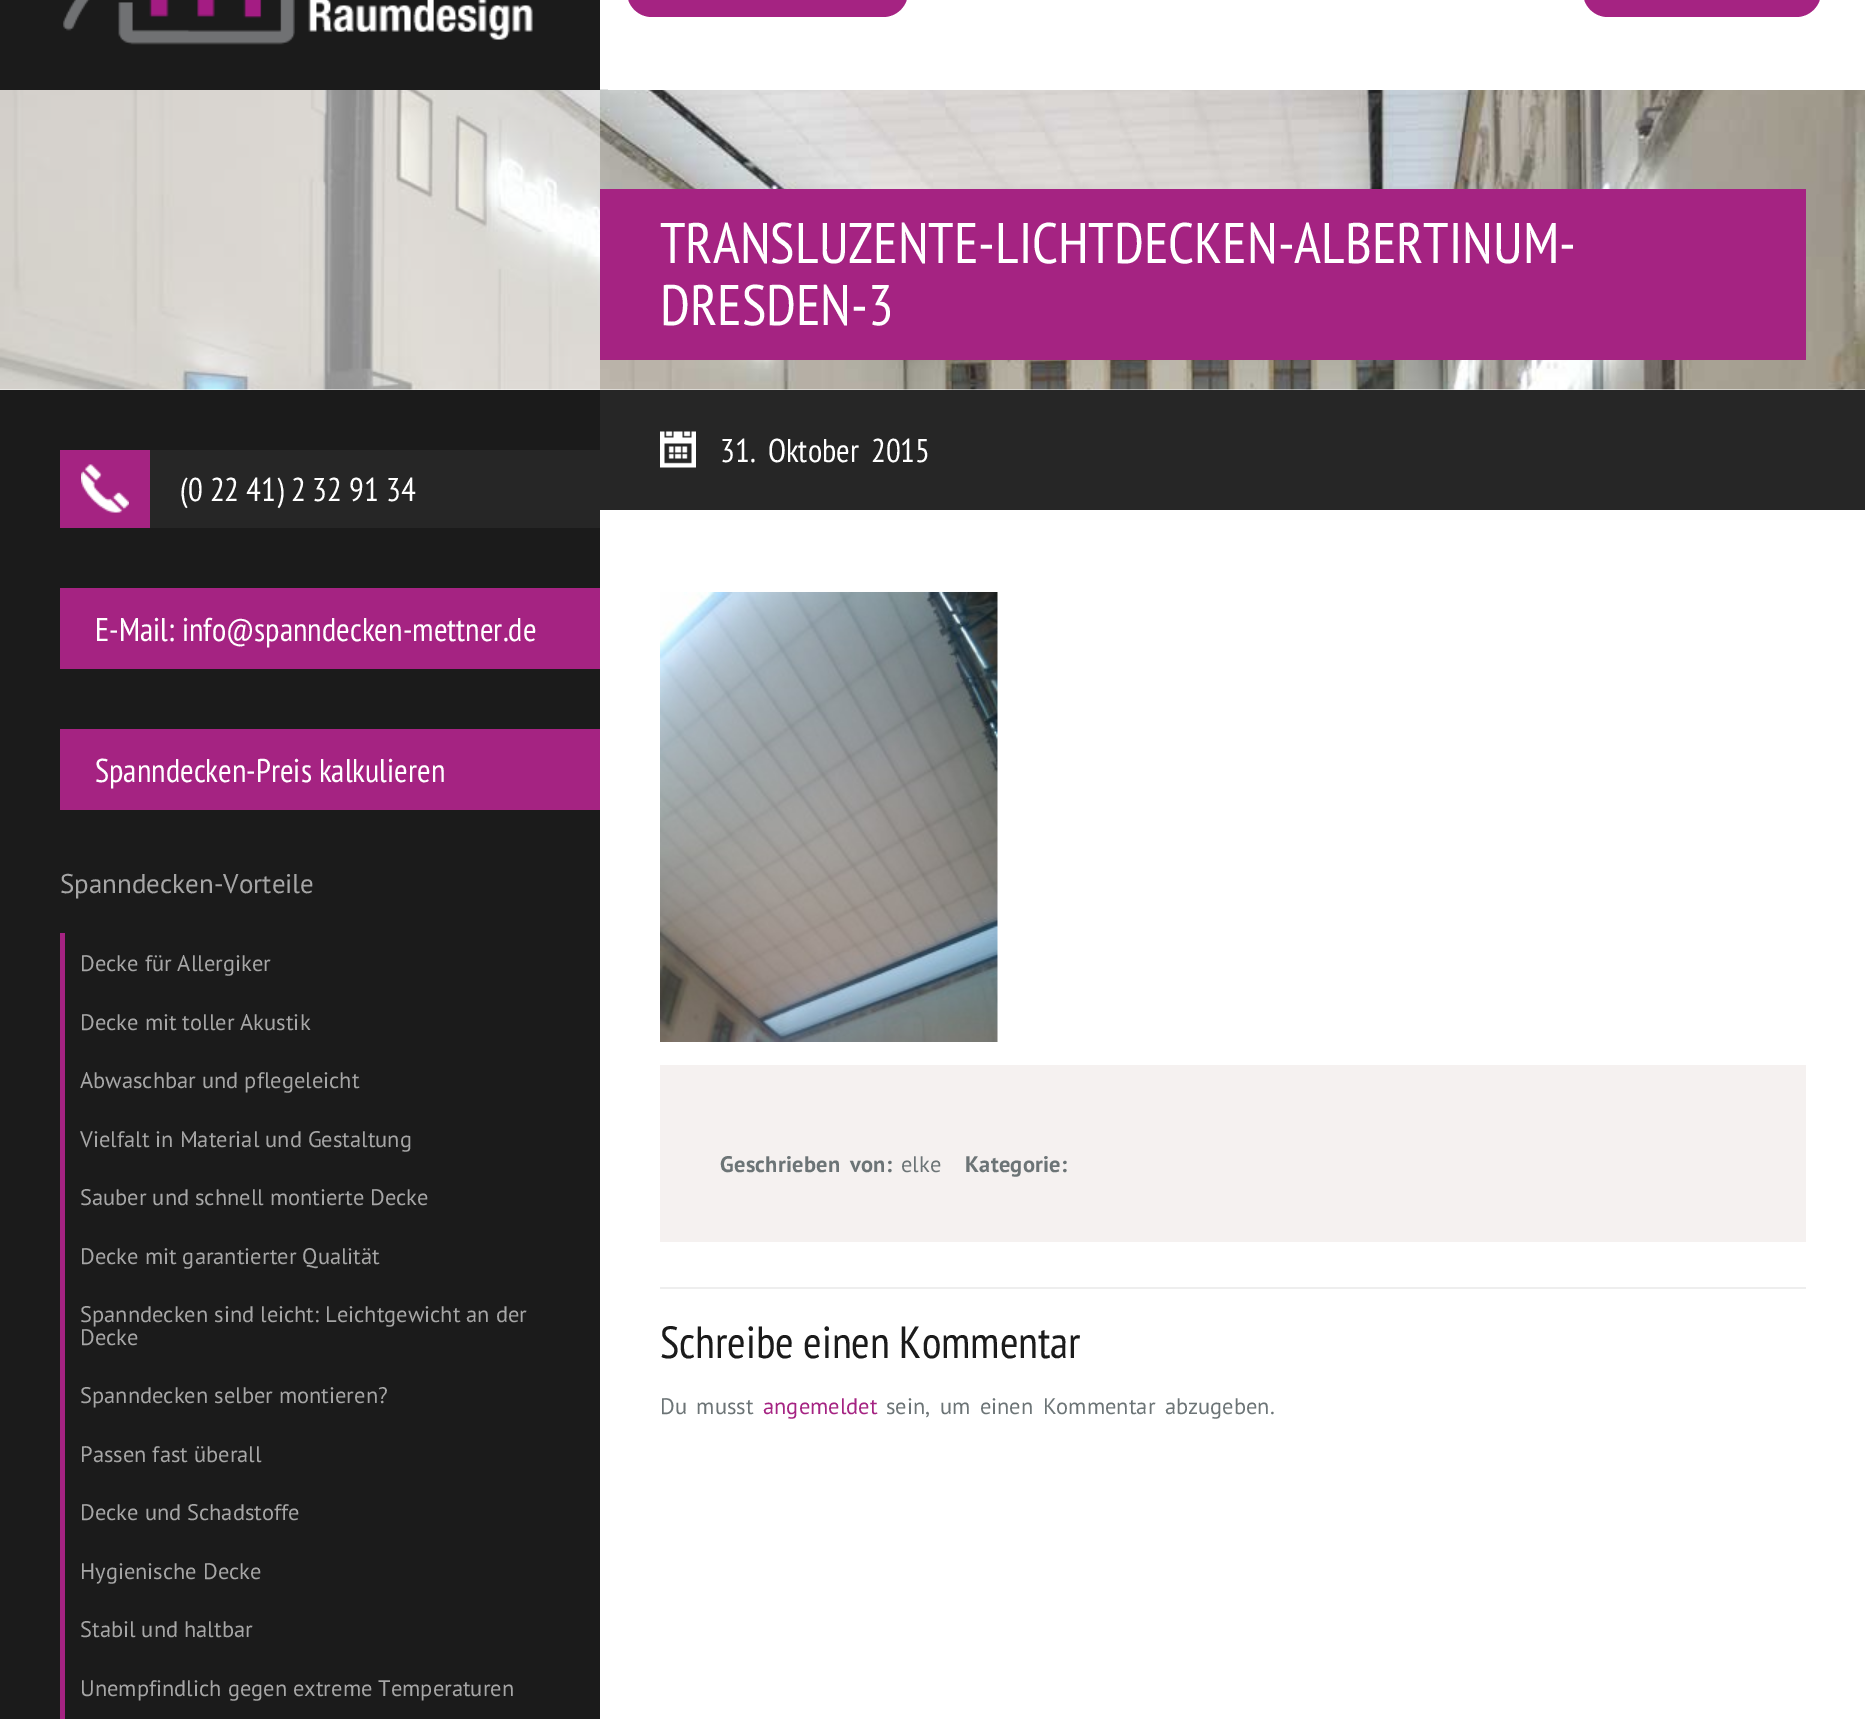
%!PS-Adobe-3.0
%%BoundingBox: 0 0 1865 1719
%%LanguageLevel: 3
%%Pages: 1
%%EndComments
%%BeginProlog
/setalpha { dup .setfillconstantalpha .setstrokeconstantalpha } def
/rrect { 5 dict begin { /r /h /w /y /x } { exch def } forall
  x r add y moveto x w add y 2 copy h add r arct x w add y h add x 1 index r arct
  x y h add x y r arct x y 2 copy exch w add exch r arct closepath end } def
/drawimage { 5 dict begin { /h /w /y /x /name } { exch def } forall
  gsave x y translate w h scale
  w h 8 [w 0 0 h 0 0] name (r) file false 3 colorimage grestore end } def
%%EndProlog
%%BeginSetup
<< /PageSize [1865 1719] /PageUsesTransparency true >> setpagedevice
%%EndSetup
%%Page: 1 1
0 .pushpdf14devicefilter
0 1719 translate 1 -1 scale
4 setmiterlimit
1 setgray
0 0 1865 1719 rectfill
(images/2.raw) 0 89 1865 301 drawimage
0.106 setgray
0 0 600 90 rectfill
(images/1.raw) 63 0 470 45 drawimage
1 setgray
608 89 1257 1 rectfill
0.647 0.137 0.51 setrgbcolor
627 -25 281 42 25 rrect fill
1583 -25 238 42 25 rrect fill
0.5 setalpha
1 setgray
0 90 600 300 rectfill
1 setalpha
0.647 0.137 0.51 setrgbcolor
600 189 1206 171 rectfill
0.106 setgray
0 390 600 1329 rectfill
0.647 0.137 0.51 setrgbcolor
60 450 90 78 rectfill
0.149 setgray
150 450 450 78 rectfill
(images/3.raw) 81 464 48 49 drawimage
0.647 0.137 0.51 setrgbcolor
60 588 540 81 rectfill
60 729 540 81 rectfill
60 933 5 786 rectfill
0.149 setgray
600 390 1265 120 rectfill
(images/4.raw) 660 431 36 37 drawimage
(images/5.raw) 660 592 338 450 drawimage
0.961 0.945 0.941 setrgbcolor
660 1065 1146 177 rectfill
0.933 setgray
660 1287 1146 2 rectfill
/PTSansNarrow-Regular [57 0 0 -57 0 0] selectfont
1 setgray
660 263 moveto (TRANSLUZENTE-LICHTDECKEN-ALBERTINUM-) show
660 325 moveto (DRESDEN-3) show
/PTSansNarrow-Regular [33 0 0 -33 0 0] selectfont
180 501 moveto (\(0 22 41\) 2 32 91 34) show
95 641 moveto (E-Mail: info@spanndecken-mettner.de) show
95 782 moveto (Spanndecken-Preis kalkulieren) show
/PTSans-Regular [27 0 0 -27 0 0] selectfont
0.651 setgray
60 893 moveto (Spanndecken-Vorteile) show
/PTSans-Regular [22.5 0 0 -22.5 0 0] selectfont
80 971 moveto (Decke für Allergiker) show
80 1030 moveto (Decke mit toller Akustik) show
80 1088 moveto (Abwaschbar und pflegeleicht) show
80 1147 moveto (Vielfalt in Material und Gestaltung) show
80 1205 moveto (Sauber und schnell montierte Decke) show
80 1264 moveto (Decke mit garantierter Qualität) show
80 1322 moveto (Spanndecken sind leicht: Leichtgewicht an der) show
80 1345 moveto (Decke) show
80 1403 moveto (Spanndecken selber montieren?) show
80 1462 moveto (Passen fast überall) show
80 1520 moveto (Decke und Schadstoffe) show
80 1579 moveto (Hygienische Decke) show
80 1637 moveto (Stabil und haltbar) show
80 1696 moveto (Unempfindlich gegen extreme Temperaturen) show
/PTSansNarrow-Regular [33 0 0 -33 0 0] selectfont
1 setgray
720 462 moveto 5 0 32 (31. Oktober 2015) widthshow
/PTSans-Bold [22.5 0 0 -22.5 0 0] selectfont
0.424 0.455 0.463 setrgbcolor
720 1172 moveto 3.5 0 32 0.25 0 (Geschrieben von:) awidthshow
/PTSans-Regular [22.5 0 0 -22.5 0 0] selectfont
901 1172 moveto (elke) show
/PTSans-Bold [22.5 0 0 -22.5 0 0] selectfont
965 1172 moveto 0.25 0 (Kategorie:) ashow
/PTSansNarrow-Regular [45 0 0 -45 0 0] selectfont
0.106 setgray
660 1358 moveto (Schreibe einen Kommentar) show
/PTSans-Regular [22.5 0 0 -22.5 0 0] selectfont
0.424 0.455 0.463 setrgbcolor
660 1414 moveto 3.5 0 32 (Du musst) widthshow
0.647 0.137 0.51 setrgbcolor
763 1414 moveto (angemeldet) show
0.424 0.455 0.463 setrgbcolor
886 1414 moveto 3.5 0 32 (sein, um einen Kommentar abzugeben.) widthshow
.poppdf14devicefilter showpage
%%EOF
